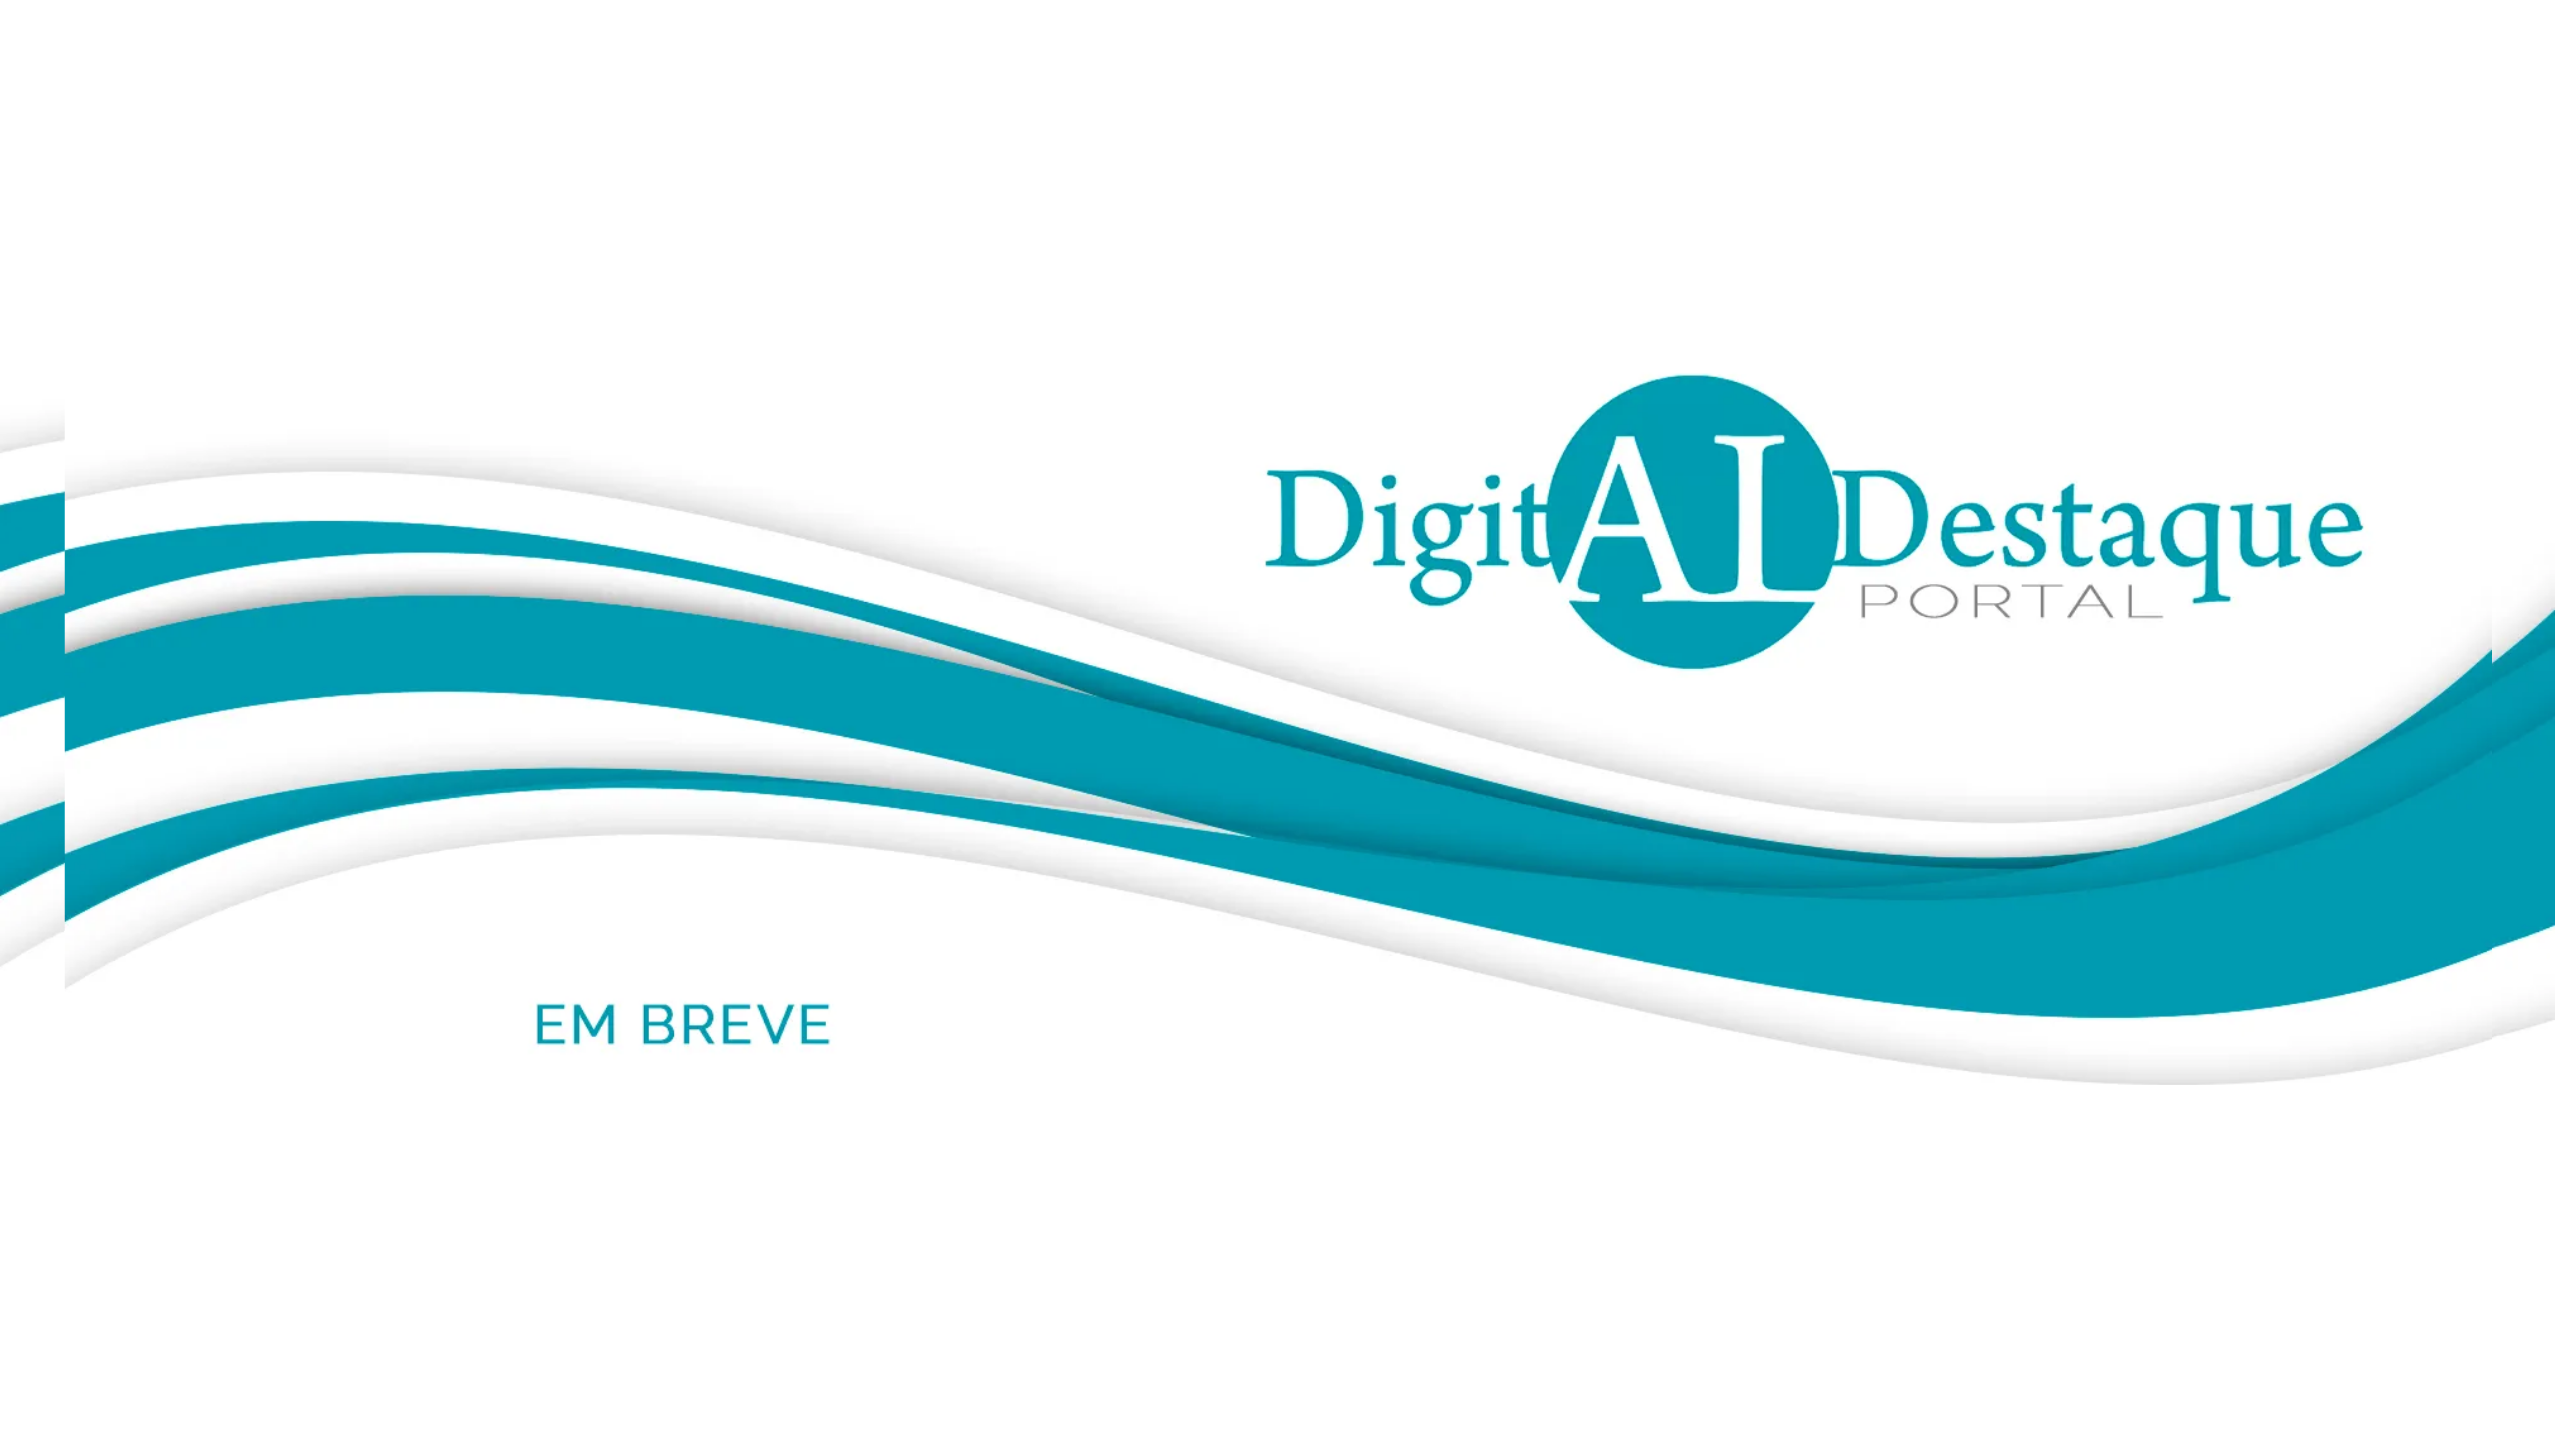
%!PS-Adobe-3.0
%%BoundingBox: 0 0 2555 1448
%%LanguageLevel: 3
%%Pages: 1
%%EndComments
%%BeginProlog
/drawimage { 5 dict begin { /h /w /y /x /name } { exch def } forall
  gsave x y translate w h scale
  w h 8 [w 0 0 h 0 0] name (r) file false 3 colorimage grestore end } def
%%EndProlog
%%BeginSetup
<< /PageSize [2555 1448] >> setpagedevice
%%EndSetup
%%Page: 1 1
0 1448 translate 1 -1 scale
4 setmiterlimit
1 setgray
0 0 2555 1448 rectfill
(images/1.raw) 0 318 2555 750 drawimage
(images/2.raw) 64 318 2428 767 drawimage
showpage
%%EOF
